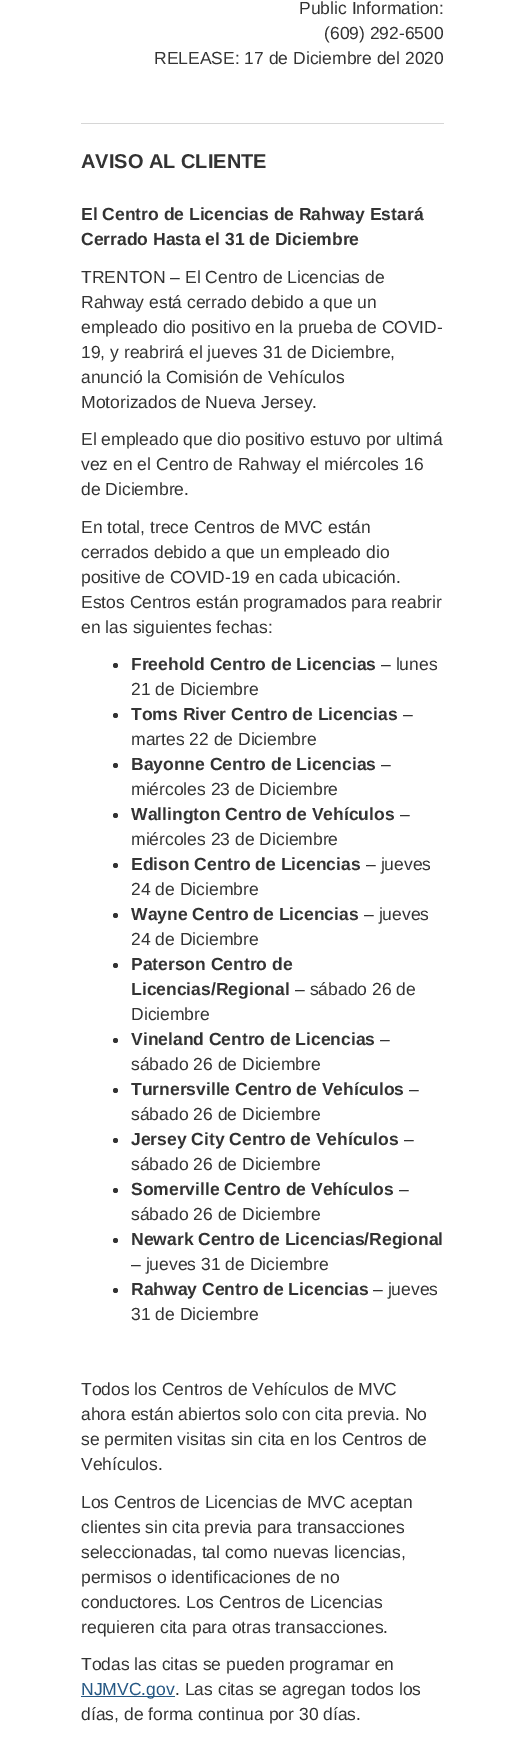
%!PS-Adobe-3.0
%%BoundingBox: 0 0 525 1740
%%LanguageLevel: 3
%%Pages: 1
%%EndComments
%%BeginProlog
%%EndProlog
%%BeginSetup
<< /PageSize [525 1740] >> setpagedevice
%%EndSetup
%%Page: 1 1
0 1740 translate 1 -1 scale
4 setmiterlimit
1 setgray
0 0 525 1740 rectfill
0.839 setgray
81 123 363 1 rectfill
0.2 setgray
newpath 115.5 665.5 2.5 0 360 arc closepath fill
newpath 115.5 715.5 2.5 0 360 arc closepath fill
newpath 115.5 765.5 2.5 0 360 arc closepath fill
newpath 115.5 815.5 2.5 0 360 arc closepath fill
newpath 115.5 865.5 2.5 0 360 arc closepath fill
newpath 115.5 915.5 2.5 0 360 arc closepath fill
newpath 115.5 965.5 2.5 0 360 arc closepath fill
newpath 115.5 1040.5 2.5 0 360 arc closepath fill
newpath 115.5 1090.5 2.5 0 360 arc closepath fill
newpath 115.5 1140.5 2.5 0 360 arc closepath fill
newpath 115.5 1190.5 2.5 0 360 arc closepath fill
newpath 115.5 1240.5 2.5 0 360 arc closepath fill
newpath 115.5 1290.5 2.5 0 360 arc closepath fill
0.145 0.341 0.514 setrgbcolor
81 1696 94 1 rectfill
/LiberationSans-Regular [17.5 0 0 -17.5 0 0] selectfont
0.2 setgray
299 14 moveto (Public Information:) show
324 39 moveto (\(609\) 292-6500) show
154 64 moveto (RELEASE: 17 de Diciembre del 2020) show
/LiberationSans-Bold [20 0 0 -20 0 0] selectfont
81 168 moveto (AVISO AL CLIENTE) show
/LiberationSans-Bold [17.5 0 0 -17.5 0 0] selectfont
81 220 moveto (El Centro de Licencias de Rahway Estará) show
81 245 moveto (Cerrado Hasta el 31 de Diciembre) show
/LiberationSans-Regular [17.5 0 0 -17.5 0 0] selectfont
81 283 moveto (TRENTON – El Centro de Licencias de) show
81 308 moveto (Rahway está cerrado debido a que un) show
81 333 moveto (empleado dio positivo en la prueba de COVID-) show
81 358 moveto (19, y reabrirá el jueves 31 de Diciembre,) show
81 383 moveto (anunció la Comisión de Vehículos) show
81 408 moveto (Motorizados de Nueva Jersey.) show
81 445 moveto (El empleado que dio positivo estuvo por ultimá) show
81 470 moveto (vez en el Centro de Rahway el miércoles 16) show
81 495 moveto (de Diciembre.) show
81 533 moveto (En total, trece Centros de MVC están) show
81 558 moveto (cerrados debido a que un empleado dio) show
81 583 moveto (positive de COVID-19 en cada ubicación.) show
81 608 moveto (Estos Centros están programados para reabrir) show
81 633 moveto (en las siguientes fechas:) show
/LiberationSans-Bold [17.5 0 0 -17.5 0 0] selectfont
131 670 moveto (Freehold Centro de Licencias) show
/LiberationSans-Regular [17.5 0 0 -17.5 0 0] selectfont
381 670 moveto (– lunes) show
131 695 moveto (21 de Diciembre) show
/LiberationSans-Bold [17.5 0 0 -17.5 0 0] selectfont
131 720 moveto (Toms River Centro de Licencias) show
/LiberationSans-Regular [17.5 0 0 -17.5 0 0] selectfont
403 720 moveto (–) show
131 745 moveto (martes 22 de Diciembre) show
/LiberationSans-Bold [17.5 0 0 -17.5 0 0] selectfont
131 770 moveto (Bayonne Centro de Licencias) show
/LiberationSans-Regular [17.5 0 0 -17.5 0 0] selectfont
381 770 moveto (–) show
131 795 moveto (miércoles 23 de Diciembre) show
/LiberationSans-Bold [17.5 0 0 -17.5 0 0] selectfont
131 820 moveto (Wallington Centro de Vehículos) show
/LiberationSans-Regular [17.5 0 0 -17.5 0 0] selectfont
400 820 moveto (–) show
131 845 moveto (miércoles 23 de Diciembre) show
/LiberationSans-Bold [17.5 0 0 -17.5 0 0] selectfont
131 870 moveto (Edison Centro de Licencias) show
/LiberationSans-Regular [17.5 0 0 -17.5 0 0] selectfont
366 870 moveto (– jueves) show
131 895 moveto (24 de Diciembre) show
/LiberationSans-Bold [17.5 0 0 -17.5 0 0] selectfont
131 920 moveto (Wayne Centro de Licencias) show
/LiberationSans-Regular [17.5 0 0 -17.5 0 0] selectfont
364 920 moveto (– jueves) show
131 945 moveto (24 de Diciembre) show
/LiberationSans-Bold [17.5 0 0 -17.5 0 0] selectfont
131 970 moveto (Paterson Centro de) show
131 995 moveto (Licencias/Regional) show
/LiberationSans-Regular [17.5 0 0 -17.5 0 0] selectfont
295 995 moveto (– sábado 26 de) show
131 1020 moveto (Diciembre) show
/LiberationSans-Bold [17.5 0 0 -17.5 0 0] selectfont
131 1045 moveto (Vineland Centro de Licencias) show
/LiberationSans-Regular [17.5 0 0 -17.5 0 0] selectfont
380 1045 moveto (–) show
131 1070 moveto (sábado 26 de Diciembre) show
/LiberationSans-Bold [17.5 0 0 -17.5 0 0] selectfont
131 1095 moveto (Turnersville Centro de Vehículos) show
/LiberationSans-Regular [17.5 0 0 -17.5 0 0] selectfont
409 1095 moveto (–) show
131 1120 moveto (sábado 26 de Diciembre) show
/LiberationSans-Bold [17.5 0 0 -17.5 0 0] selectfont
131 1145 moveto (Jersey City Centro de Vehículos) show
/LiberationSans-Regular [17.5 0 0 -17.5 0 0] selectfont
404 1145 moveto (–) show
131 1170 moveto (sábado 26 de Diciembre) show
/LiberationSans-Bold [17.5 0 0 -17.5 0 0] selectfont
131 1195 moveto (Somerville Centro de Vehículos) show
/LiberationSans-Regular [17.5 0 0 -17.5 0 0] selectfont
399 1195 moveto (–) show
131 1220 moveto (sábado 26 de Diciembre) show
/LiberationSans-Bold [17.5 0 0 -17.5 0 0] selectfont
131 1245 moveto (Newark Centro de Licencias/Regional) show
/LiberationSans-Regular [17.5 0 0 -17.5 0 0] selectfont
131 1270 moveto (– jueves 31 de Diciembre) show
/LiberationSans-Bold [17.5 0 0 -17.5 0 0] selectfont
131 1295 moveto (Rahway Centro de Licencias) show
/LiberationSans-Regular [17.5 0 0 -17.5 0 0] selectfont
373 1295 moveto (– jueves) show
131 1320 moveto (31 de Diciembre) show
81 1395 moveto (Todos los Centros de Vehículos de MVC) show
81 1420 moveto (ahora están abiertos solo con cita previa. No) show
81 1445 moveto (se permiten visitas sin cita en los Centros de) show
81 1470 moveto (Vehículos.) show
81 1508 moveto (Los Centros de Licencias de MVC aceptan) show
81 1533 moveto (clientes sin cita previa para transacciones) show
81 1558 moveto (seleccionadas, tal como nuevas licencias,) show
81 1583 moveto (permisos o identificaciones de no) show
81 1608 moveto (conductores. Los Centros de Licencias) show
81 1633 moveto (requieren cita para otras transacciones.) show
81 1670 moveto (Todas las citas se pueden programar en) show
0.145 0.341 0.514 setrgbcolor
81 1695 moveto (NJMVC.gov) show
0.2 setgray
175 1695 moveto (. Las citas se agregan todos los) show
81 1720 moveto (días, de forma continua por 30 días.) show
showpage
%%EOF
